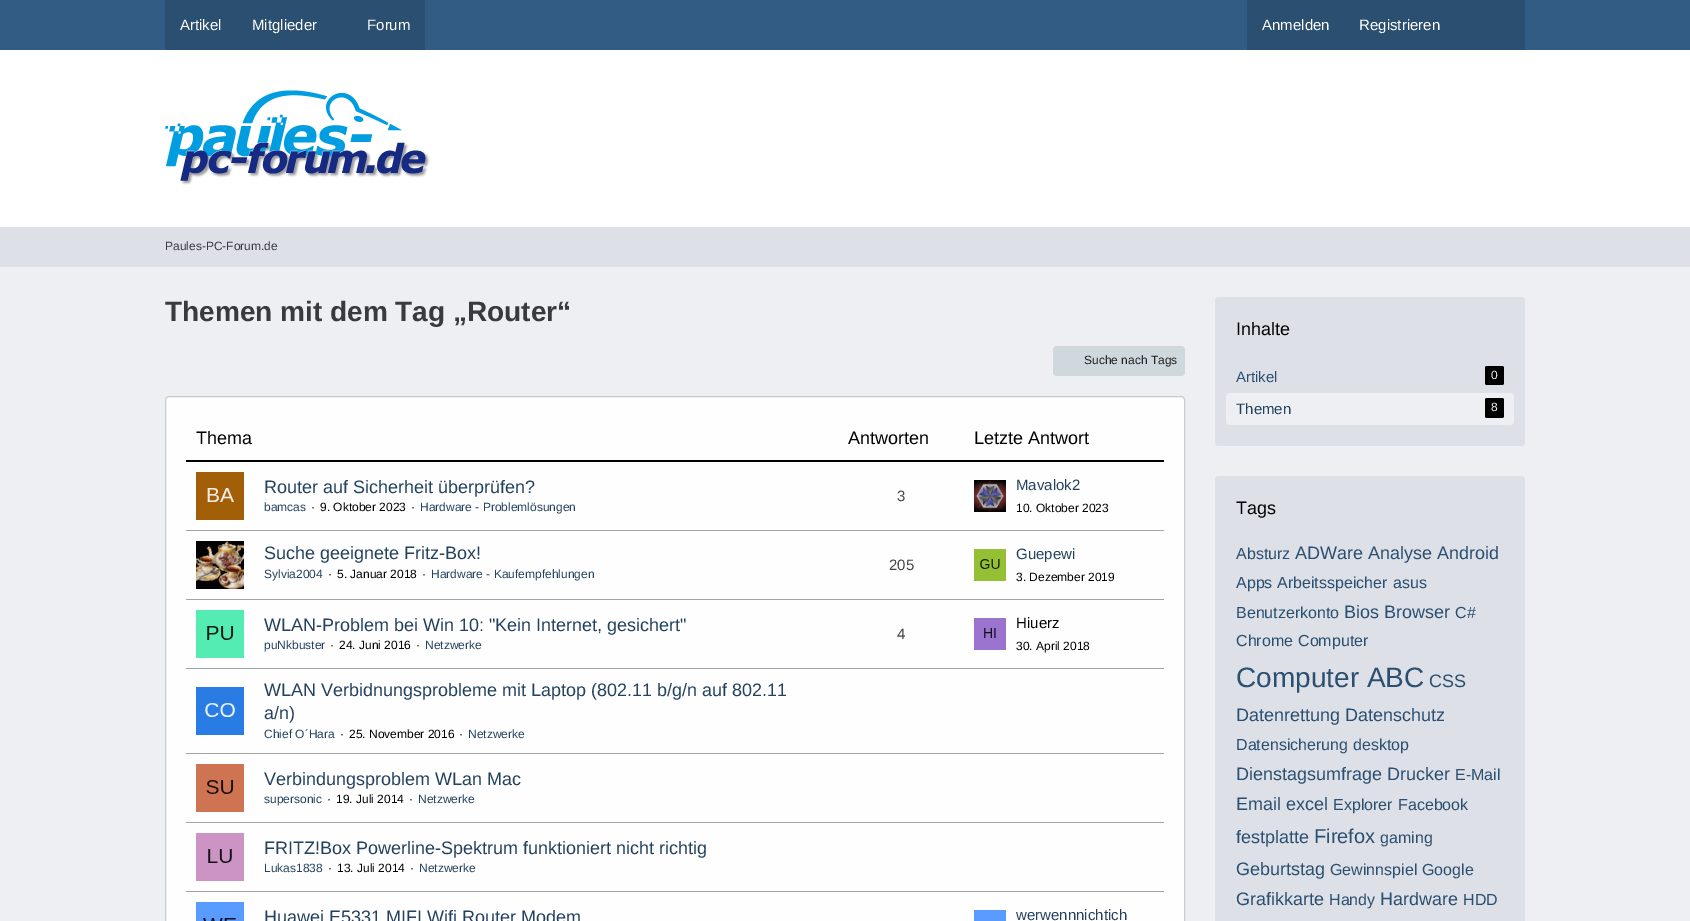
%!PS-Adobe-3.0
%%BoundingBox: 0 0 1690 921
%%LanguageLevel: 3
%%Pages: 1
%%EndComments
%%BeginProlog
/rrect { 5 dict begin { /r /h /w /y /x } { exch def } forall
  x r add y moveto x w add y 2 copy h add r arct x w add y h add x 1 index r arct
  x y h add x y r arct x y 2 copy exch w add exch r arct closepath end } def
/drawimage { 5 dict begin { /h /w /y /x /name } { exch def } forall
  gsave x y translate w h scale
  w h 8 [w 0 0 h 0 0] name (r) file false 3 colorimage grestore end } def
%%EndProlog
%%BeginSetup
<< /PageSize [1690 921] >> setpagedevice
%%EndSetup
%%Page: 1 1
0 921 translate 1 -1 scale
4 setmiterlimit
0.929 0.937 0.949 setrgbcolor
0 0 1690 921 rectfill
1 setgray
0 50 1690 177 rectfill
0.196 0.361 0.518 setrgbcolor
0 0 1690 50 rectfill
0.169 0.31 0.443 setrgbcolor
165 0 260 50 rectfill
1247 0 278 50 rectfill
(images/1.raw) 165 90 265 95 drawimage
0.867 0.878 0.902 setrgbcolor
0 227 1690 40 rectfill
0.812 0.847 0.863 setrgbcolor
1053 346 132 30 4 rrect fill
0.996 setgray
165.5 396.5 1019 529 3.5 rrect gsave fill grestore
0.796 setgray
stroke
0 setgray
186 460 978 2 rectfill
(images/2.raw) 196 472 48 48 drawimage
(images/3.raw) 974 480 32 32 drawimage
0.643 setgray
186 530 978 1 rectfill
(images/4.raw) 196 541 48 48 drawimage
(images/5.raw) 974 549 32 32 drawimage
186 599 978 1 rectfill
(images/6.raw) 196 610 48 48 drawimage
(images/7.raw) 974 618 32 32 drawimage
186 668 978 1 rectfill
(images/8.raw) 196 687 48 48 drawimage
186 753 978 1 rectfill
(images/9.raw) 196 764 48 48 drawimage
186 822 978 1 rectfill
(images/10.raw) 196 833 48 48 drawimage
186 891 978 1 rectfill
(images/11.raw) 196 902 48 19 drawimage
0.353 0.608 1 setrgbcolor
974 910 32 11 rectfill
0.867 0.878 0.902 setrgbcolor
1215 297 310 149 4 rrect fill
0 setgray
1485 366 19 19 2 rrect fill
0.929 0.937 0.949 setrgbcolor
1226 393 288 32 4 rrect fill
0 setgray
1485 398 19 20 2 rrect fill
0.867 0.878 0.902 setrgbcolor
1215 476 310 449 4 rrect fill
/LiberationSans-Regular [15 0 0 -15 0 0] selectfont
1 setgray
180 30 moveto (Artikel) show
252 30 moveto (Mitglieder) show
367 30 moveto (Forum) show
1262 30 moveto (Anmelden) show
1359 30 moveto (Registrieren) show
/LiberationSans-Regular [12 0 0 -12 0 0] selectfont
0.227 0.227 0.239 setrgbcolor
165 250 moveto (Paules-PC-Forum.de) show
/LiberationSans-Bold [28 0 0 -28 0 0] selectfont
165 321 moveto (Themen mit dem Tag „Router“) show
/LiberationSans-Regular [12 0 0 -12 0 0] selectfont
0.129 setgray
1084 364 moveto (Suche nach Tags) show
/LiberationSans-Regular [18 0 0 -18 0 0] selectfont
0 setgray
196 444 moveto (Thema) show
848 444 moveto (Antworten) show
974 444 moveto (Letzte Antwort) show
0.141 0.259 0.373 setrgbcolor
264 493 moveto (Router auf Sicherheit überprüfen?) show
/LiberationSans-Regular [12 0 0 -12 0 0] selectfont
264 511 moveto (bamcas) show
0 setgray
311 511 moveto (·) show
320 511 moveto (9. Oktober 2023) show
411 511 moveto (·) show
0.141 0.259 0.373 setrgbcolor
420 511 moveto (Hardware - Problemlösungen) show
/LiberationSans-Regular [15 0 0 -15 0 0] selectfont
0.267 setgray
897 501 moveto (3) show
0.141 0.259 0.373 setrgbcolor
1016 490 moveto (Mavalok2) show
/LiberationSans-Regular [12 0 0 -12 0 0] selectfont
0 setgray
1016 512 moveto (10. Oktober 2023) show
/LiberationSans-Regular [18 0 0 -18 0 0] selectfont
0.141 0.259 0.373 setrgbcolor
264 559 moveto (Suche geeignete Fritz-Box!) show
/LiberationSans-Regular [12 0 0 -12 0 0] selectfont
264 578 moveto (Sylvia2004) show
0 setgray
328 578 moveto (·) show
337 578 moveto (5. Januar 2018) show
422 578 moveto (·) show
0.141 0.259 0.373 setrgbcolor
431 578 moveto (Hardware - Kaufempfehlungen) show
/LiberationSans-Regular [15 0 0 -15 0 0] selectfont
0.267 setgray
889 570 moveto (205) show
0.141 0.259 0.373 setrgbcolor
1016 559 moveto (Guepewi) show
/LiberationSans-Regular [12 0 0 -12 0 0] selectfont
0 setgray
1016 581 moveto (3. Dezember 2019) show
/LiberationSans-Regular [18 0 0 -18 0 0] selectfont
0.141 0.259 0.373 setrgbcolor
264 631 moveto (WLAN-Problem bei Win 10: "Kein Internet, gesichert") show
/LiberationSans-Regular [12 0 0 -12 0 0] selectfont
264 649 moveto (puNkbuster) show
0 setgray
330 649 moveto (·) show
339 649 moveto (24. Juni 2016) show
416 649 moveto (·) show
0.141 0.259 0.373 setrgbcolor
425 649 moveto (Netzwerke) show
/LiberationSans-Regular [15 0 0 -15 0 0] selectfont
0.267 setgray
897 639 moveto (4) show
0 setgray
1016 628 moveto (Hiuerz) show
/LiberationSans-Regular [12 0 0 -12 0 0] selectfont
1016 650 moveto (30. April 2018) show
/LiberationSans-Regular [18 0 0 -18 0 0] selectfont
0.141 0.259 0.373 setrgbcolor
264 696 moveto (WLAN Verbidnungsprobleme mit Laptop \(802.11 b/g/n auf 802.11) show
264 719 moveto (a/n\)) show
/LiberationSans-Regular [12 0 0 -12 0 0] selectfont
264 738 moveto (Chief O´Hara) show
0 setgray
340 738 moveto (·) show
349 738 moveto (25. November 2016) show
459 738 moveto (·) show
0.141 0.259 0.373 setrgbcolor
468 738 moveto (Netzwerke) show
/LiberationSans-Regular [18 0 0 -18 0 0] selectfont
264 785 moveto (Verbindungsproblem WLan Mac) show
/LiberationSans-Regular [12 0 0 -12 0 0] selectfont
264 803 moveto (supersonic) show
0 setgray
327 803 moveto (·) show
336 803 moveto (19. Juli 2014) show
409 803 moveto (·) show
0.141 0.259 0.373 setrgbcolor
418 803 moveto (Netzwerke) show
/LiberationSans-Regular [18 0 0 -18 0 0] selectfont
264 854 moveto (FRITZ!Box Powerline-Spektrum funktioniert nicht richtig) show
/LiberationSans-Regular [12 0 0 -12 0 0] selectfont
264 872 moveto (Lukas1838) show
0 setgray
328 872 moveto (·) show
337 872 moveto (13. Juli 2014) show
410 872 moveto (·) show
0.141 0.259 0.373 setrgbcolor
419 872 moveto (Netzwerke) show
/LiberationSans-Regular [18 0 0 -18 0 0] selectfont
264 923 moveto (Huawei E5331 MIFI Wifi Router Modem) show
/LiberationSans-Regular [15 0 0 -15 0 0] selectfont
1016 920 moveto (werwennnichtich) show
/LiberationSans-Regular [18 0 0 -18 0 0] selectfont
0 setgray
1236 335 moveto (Inhalte) show
/LiberationSans-Regular [15 0 0 -15 0 0] selectfont
0.169 0.31 0.443 setrgbcolor
1236 382 moveto (Artikel) show
/LiberationSans-Regular [12 0 0 -12 0 0] selectfont
0.929 0.937 0.949 setrgbcolor
1491 379 moveto (0) show
/LiberationSans-Regular [15 0 0 -15 0 0] selectfont
0.141 0.259 0.373 setrgbcolor
1236 414 moveto (Themen) show
/LiberationSans-Regular [12 0 0 -12 0 0] selectfont
0.929 0.937 0.949 setrgbcolor
1491 411 moveto (8) show
/LiberationSans-Regular [18 0 0 -18 0 0] selectfont
0 setgray
1236 514 moveto (Tags) show
/LiberationSans-Regular [16 0 0 -16 0 0] selectfont
0.169 0.31 0.443 setrgbcolor
1236 559 moveto (Absturz) show
/LiberationSans-Regular [18 0 0 -18 0 0] selectfont
1295 559 moveto (ADWare Analyse Android) show
/LiberationSans-Regular [16 0 0 -16 0 0] selectfont
1236 588 moveto (Apps) show
1277 588 moveto (Arbeitsspeicher) show
1393 588 moveto (asus) show
1236 618 moveto (Benutzerkonto) show
/LiberationSans-Regular [18 0 0 -18 0 0] selectfont
1344 618 moveto (Bios Browser) show
/LiberationSans-Regular [16 0 0 -16 0 0] selectfont
1455 618 moveto (C#) show
1236 646 moveto (Chrome) show
1298 646 moveto (Computer) show
/LiberationSans-Regular [28 0 0 -28 0 0] selectfont
1236 687 moveto (Computer ABC) show
/LiberationSans-Regular [18 0 0 -18 0 0] selectfont
1429 687 moveto (CSS) show
1236 721 moveto (Datenrettung Datenschutz) show
/LiberationSans-Regular [16 0 0 -16 0 0] selectfont
1236 750 moveto (Datensicherung) show
1353 750 moveto (desktop) show
/LiberationSans-Regular [18 0 0 -18 0 0] selectfont
1236 780 moveto (Dienstagsumfrage Drucker) show
/LiberationSans-Regular [16 0 0 -16 0 0] selectfont
1455 780 moveto (E-Mail) show
/LiberationSans-Regular [18 0 0 -18 0 0] selectfont
1236 810 moveto (Email excel) show
/LiberationSans-Regular [16 0 0 -16 0 0] selectfont
1333 810 moveto (Explorer) show
1398 810 moveto (Facebook) show
/LiberationSans-Regular [18 0 0 -18 0 0] selectfont
1236 843 moveto (festplatte) show
/LiberationSans-Regular [20 0 0 -20 0 0] selectfont
1314 843 moveto (Firefox) show
/LiberationSans-Regular [16 0 0 -16 0 0] selectfont
1380 843 moveto (gaming) show
/LiberationSans-Regular [18 0 0 -18 0 0] selectfont
1236 875 moveto (Geburtstag) show
/LiberationSans-Regular [16 0 0 -16 0 0] selectfont
1330 875 moveto (Gewinnspiel) show
1422 875 moveto (Google) show
/LiberationSans-Regular [18 0 0 -18 0 0] selectfont
1236 905 moveto (Grafikkarte) show
/LiberationSans-Regular [16 0 0 -16 0 0] selectfont
1329 905 moveto (Handy) show
/LiberationSans-Regular [18 0 0 -18 0 0] selectfont
1380 905 moveto (Hardware) show
/LiberationSans-Regular [16 0 0 -16 0 0] selectfont
1463 905 moveto (HDD) show
showpage
%%EOF
